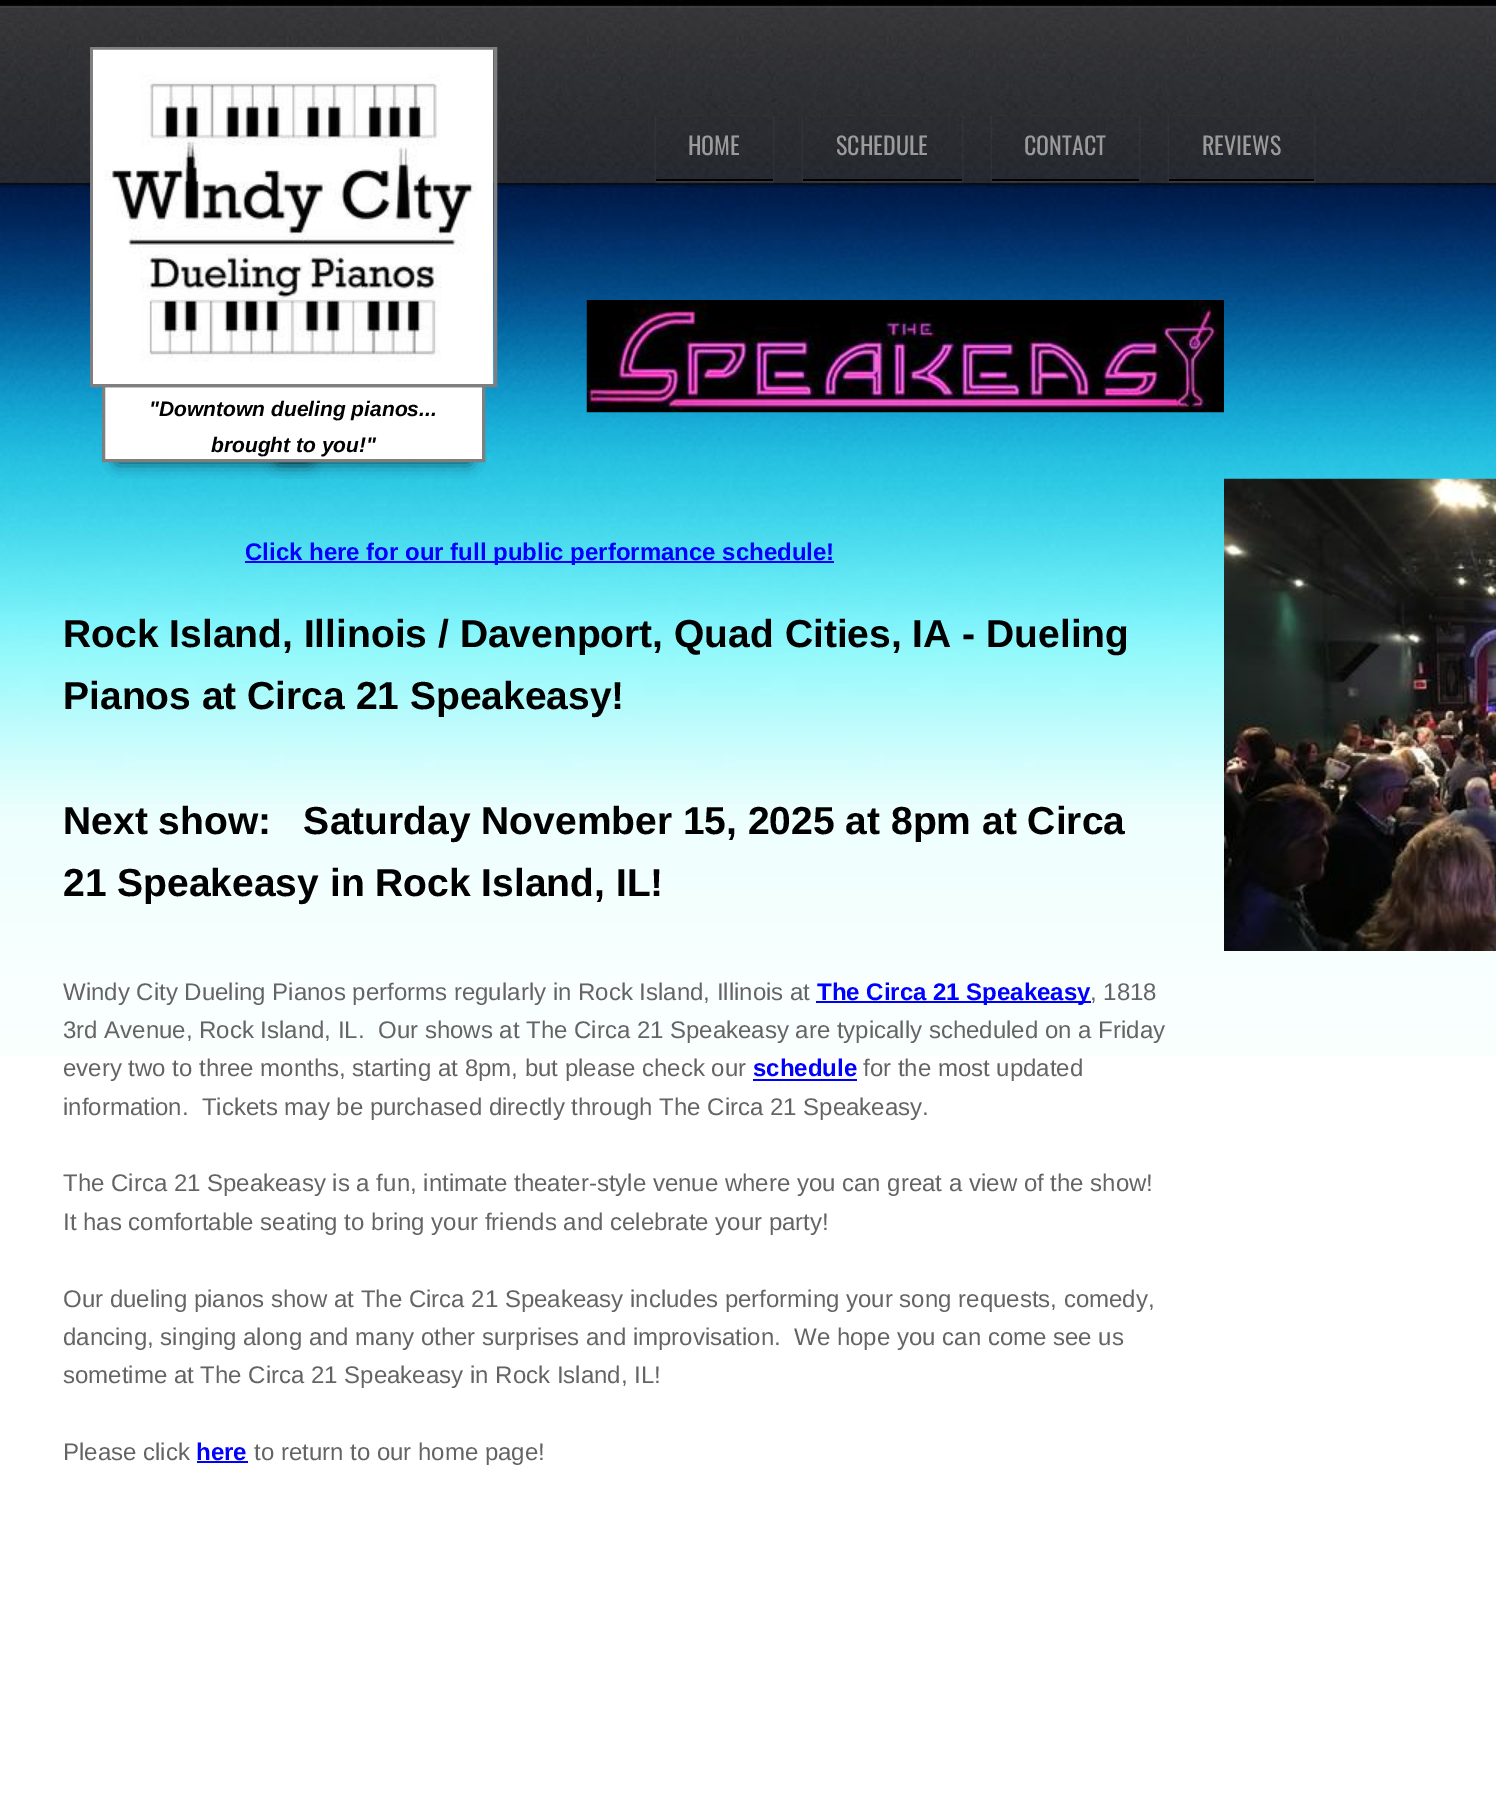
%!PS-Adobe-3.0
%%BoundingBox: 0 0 1496 1805
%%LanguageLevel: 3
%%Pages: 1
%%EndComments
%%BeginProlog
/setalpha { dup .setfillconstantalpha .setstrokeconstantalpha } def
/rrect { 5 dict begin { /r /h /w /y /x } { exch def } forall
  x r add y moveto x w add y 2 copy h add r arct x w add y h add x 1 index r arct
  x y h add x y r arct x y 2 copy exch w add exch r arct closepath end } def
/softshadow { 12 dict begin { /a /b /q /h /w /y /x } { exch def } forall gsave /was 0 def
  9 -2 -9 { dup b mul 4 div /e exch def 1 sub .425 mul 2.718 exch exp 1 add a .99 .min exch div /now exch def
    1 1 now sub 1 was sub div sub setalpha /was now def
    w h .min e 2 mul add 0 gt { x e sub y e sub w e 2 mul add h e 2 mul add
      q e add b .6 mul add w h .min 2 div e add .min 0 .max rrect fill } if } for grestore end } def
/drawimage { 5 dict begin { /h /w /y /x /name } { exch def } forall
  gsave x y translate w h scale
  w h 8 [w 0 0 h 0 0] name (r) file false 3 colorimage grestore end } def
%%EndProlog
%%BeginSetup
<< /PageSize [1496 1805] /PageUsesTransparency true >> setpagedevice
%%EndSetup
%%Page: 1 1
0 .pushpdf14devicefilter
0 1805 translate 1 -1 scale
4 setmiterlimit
1 setgray
0 0 1496 1805 rectfill
(images/1.raw) 0 0 1496 1056 drawimage
0 setgray
117 447 192 15 0 7.5 0.7 softshadow
278 447 192 15 0 7.5 0.7 softshadow
1 setgray
newpath 103.5 385.5 moveto 483.5 385.5 lineto 483.5 460.5 lineto 103.5 460.5 lineto closepath gsave fill grestore
0.498 setgray
3 setlinewidth
stroke
91.5 48.5 404 337 rectstroke
(images/2.raw) 93 49 401 335 drawimage
gsave
newpath 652 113 moveto 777 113 lineto 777 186 lineto 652 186 lineto closepath 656 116 moveto 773 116 lineto 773 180 lineto 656 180 lineto closepath eoclip newpath
1 setgray
656 117 117 65 0 1 0.1 softshadow
grestore
0 setgray
656 179 117 2 rectfill
gsave
newpath 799 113 moveto 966 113 lineto 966 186 lineto 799 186 lineto closepath 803 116 moveto 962 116 lineto 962 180 lineto 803 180 lineto closepath eoclip newpath
1 setgray
803 117 159 65 0 1 0.1 softshadow
grestore
803 179 159 2 rectfill
gsave
newpath 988 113 moveto 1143 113 lineto 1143 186 lineto 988 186 lineto closepath 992 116 moveto 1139 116 lineto 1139 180 lineto 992 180 lineto closepath eoclip newpath
1 setgray
992 117 147 65 0 1 0.1 softshadow
grestore
992 179 147 2 rectfill
gsave
newpath 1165 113 moveto 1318 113 lineto 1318 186 lineto 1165 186 lineto closepath 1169 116 moveto 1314 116 lineto 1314 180 lineto 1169 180 lineto closepath eoclip newpath
1 setgray
1169 117 145 65 0 1 0.1 softshadow
grestore
1169 179 145 2 rectfill
(images/3.raw) 586 300 638 113 drawimage
0 0 1 setrgbcolor
245 561 589 2 rectfill
(images/4.raw) 1224 478 272 473 drawimage
816 1001 275 2 rectfill
753 1079 104 2 rectfill
197 1461 51 2 rectfill
/Oswald-Regular [24 0 0 -24 0 0] selectfont
0.608 setgray
688 155 moveto (HOME) show
836 155 moveto (SCHEDULE) show
1024 155 moveto (CONTACT) show
1202 155 moveto (REVIEWS) show
/LiberationSans-BoldItalic [21 0 0 -21 0 0] selectfont
0 setgray
149 416 moveto ("Downtown dueling pianos...) show
211 452 moveto (brought to you!") show
/LiberationSans-Bold [24 0 0 -24 0 0] selectfont
0 0 1 setrgbcolor
245 560 moveto (Click here for our full public performance schedule!) show
/LiberationSans-Bold [39 0 0 -39 0 0] selectfont
0 setgray
63 647 moveto (Rock Island, Illinois / Davenport, Quad Cities, IA - Dueling) show
63 709 moveto (Pianos at Circa 21 Speakeasy!) show
63 834 moveto (Next show:   Saturday November 15, 2025 at 8pm at Circa) show
63 896 moveto (21 Speakeasy in Rock Island, IL!) show
/LiberationSans-Regular [24 0 0 -24 0 0] selectfont
0.392 setgray
63 1000 moveto (Windy City Dueling Pianos performs regularly in Rock Island, Illinois at) show
/LiberationSans-Bold [24 0 0 -24 0 0] selectfont
0 0 1 setrgbcolor
817 1000 moveto (The Circa 21 Speakeasy) show
/LiberationSans-Regular [24 0 0 -24 0 0] selectfont
0.392 setgray
1090 1000 moveto (, 1818) show
63 1038 moveto (3rd Avenue, Rock Island, IL.  Our shows at The Circa 21 Speakeasy are typically scheduled on a Friday) show
63 1076 moveto (every two to three months, starting at 8pm, but please check our) show
/LiberationSans-Bold [24 0 0 -24 0 0] selectfont
0 0 1 setrgbcolor
753 1076 moveto (schedule) show
/LiberationSans-Regular [24 0 0 -24 0 0] selectfont
0.392 setgray
863 1076 moveto (for the most updated) show
63 1115 moveto (information.  Tickets may be purchased directly through The Circa 21 Speakeasy.) show
63 1191 moveto (The Circa 21 Speakeasy is a fun, intimate theater-style venue where you can great a view of the show!) show
63 1230 moveto (It has comfortable seating to bring your friends and celebrate your party!) show
63 1307 moveto (Our dueling pianos show at The Circa 21 Speakeasy includes performing your song requests, comedy,) show
63 1345 moveto (dancing, singing along and many other surprises and improvisation.  We hope you can come see us) show
63 1383 moveto (sometime at The Circa 21 Speakeasy in Rock Island, IL!) show
63 1460 moveto (Please click) show
/LiberationSans-Bold [24 0 0 -24 0 0] selectfont
0 0 1 setrgbcolor
196 1460 moveto (here) show
/LiberationSans-Regular [24 0 0 -24 0 0] selectfont
0.392 setgray
254 1460 moveto (to return to our home page!) show
.poppdf14devicefilter showpage
%%EOF
